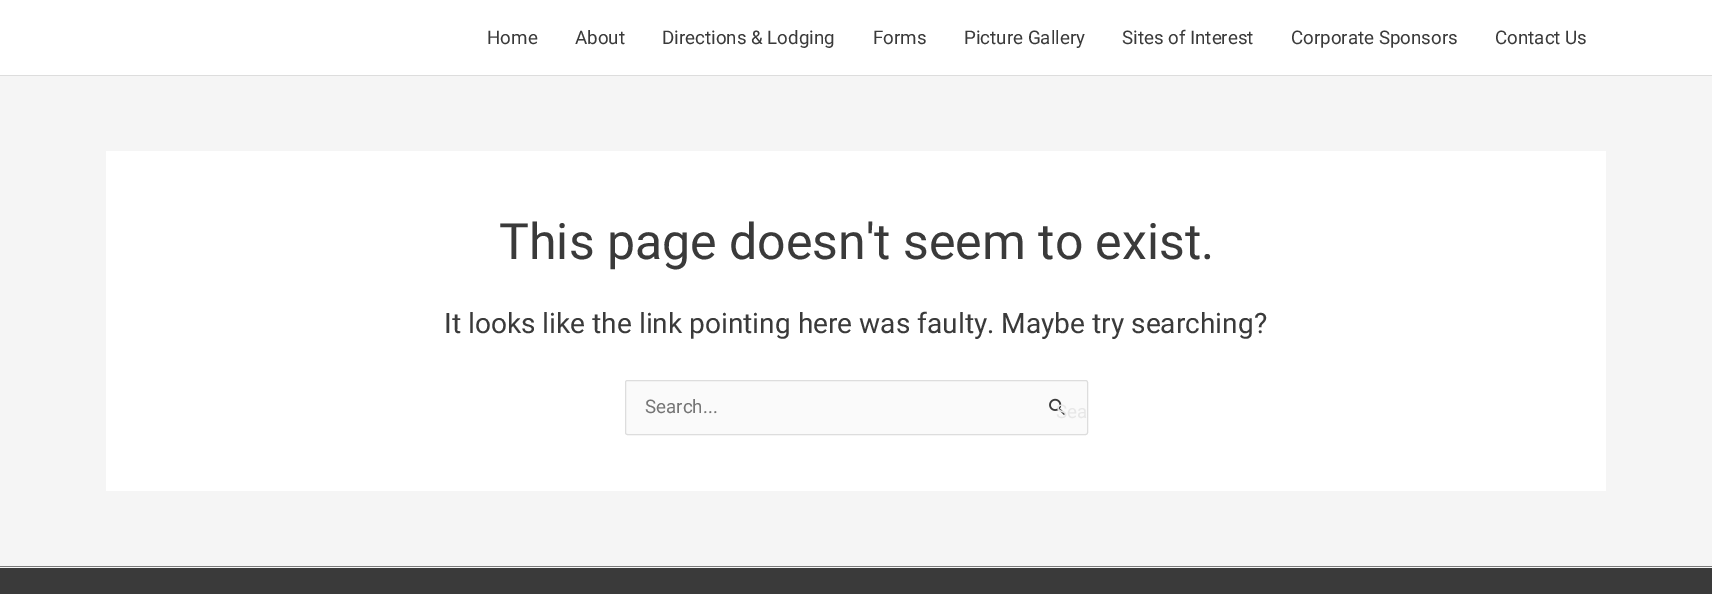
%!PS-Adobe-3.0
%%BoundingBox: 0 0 1712 594
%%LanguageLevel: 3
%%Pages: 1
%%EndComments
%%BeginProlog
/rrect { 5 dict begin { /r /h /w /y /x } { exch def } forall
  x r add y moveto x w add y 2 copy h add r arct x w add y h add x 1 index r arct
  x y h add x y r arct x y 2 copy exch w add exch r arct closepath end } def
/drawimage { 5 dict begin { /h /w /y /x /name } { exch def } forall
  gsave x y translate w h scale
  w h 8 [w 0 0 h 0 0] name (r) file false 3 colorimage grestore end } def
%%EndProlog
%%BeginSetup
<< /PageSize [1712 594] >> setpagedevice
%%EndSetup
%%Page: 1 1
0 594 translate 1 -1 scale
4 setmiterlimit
0.961 setgray
0 0 1712 594 rectfill
1 setgray
0 0 1712 75 rectfill
0.867 setgray
0 75 1712 1 rectfill
1 setgray
106 151 1500 340 rectfill
0.98 setgray
625.5 380.5 462 54 2 rrect gsave fill grestore
0.867 setgray
stroke
(images/1.raw) 1049 398 17 18 drawimage
0.478 setgray
0 566 1712 1 rectfill
0.227 setgray
0 568 1712 26 rectfill
/Roboto-Regular [18.75 0 0 -18.75 0 0] selectfont
487 44 moveto (Home) show
575 44 moveto (About) show
662 44 moveto (Directions & Lodging) show
873 44 moveto (Forms) show
964 44 moveto (Picture Gallery) show
1122 44 moveto (Sites of Interest) show
1291 44 moveto (Corporate Sponsors) show
1495 44 moveto (Contact Us) show
/Roboto-Regular [50 0 0 -50 0 0] selectfont
499 259 moveto (This page doesn't seem to exist.) show
/Roboto-Regular [28.1 0 0 -28.1 0 0] selectfont
444 333 moveto (It looks like the link pointing here was faulty. Maybe try searching?) show
/Roboto-Regular [18.75 0 0 -18.75 0 0] selectfont
0.459 setgray
645 413 moveto (Search...) show
0.906 setgray
1056 418 moveto (Sea) show
showpage
%%EOF
